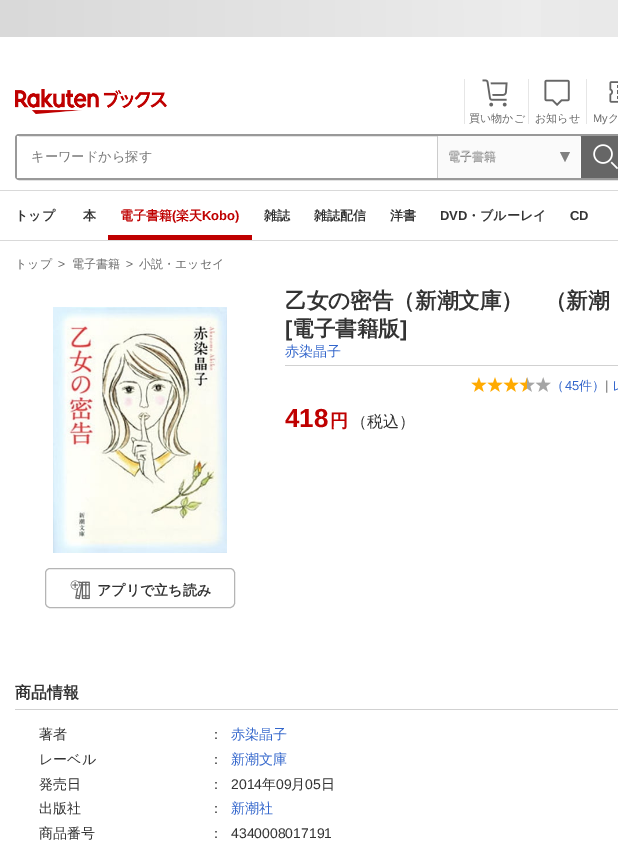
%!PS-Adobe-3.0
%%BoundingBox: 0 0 618 845
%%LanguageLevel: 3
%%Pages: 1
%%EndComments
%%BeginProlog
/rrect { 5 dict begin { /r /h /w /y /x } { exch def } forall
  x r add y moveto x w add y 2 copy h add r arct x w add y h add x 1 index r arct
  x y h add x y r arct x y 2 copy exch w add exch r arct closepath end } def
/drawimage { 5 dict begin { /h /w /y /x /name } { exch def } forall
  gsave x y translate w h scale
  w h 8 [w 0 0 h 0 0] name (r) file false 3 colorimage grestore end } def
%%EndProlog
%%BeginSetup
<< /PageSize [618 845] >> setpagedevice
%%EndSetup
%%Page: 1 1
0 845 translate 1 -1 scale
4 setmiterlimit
1 setgray
0 0 618 845 rectfill
gsave newpath 0 0 moveto 618 0 lineto 618 37 lineto 0 37 lineto closepath clip newpath
<< /ShadingType 2 /ColorSpace /DeviceRGB /Coords [0 19 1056 18] /Extend [true true] /Function << /FunctionType 3 /Domain [0 1] /Functions [<< /FunctionType 2 /Domain [0 1] /C0 [0.851 0.851 0.851] /C1 [0.925 0.925 0.925] /N 1 >> << /FunctionType 2 /Domain [0 1] /C0 [0.925 0.925 0.925] /C1 [0.851 0.851 0.851] /N 1 >>] /Bounds [0.5] /Encode [0 1 0 1] >> >> shfill grestore
0.851 setgray
0 240 618 1 rectfill
(images/1.raw) 15 89 152 25 drawimage
0.902 setgray
464 79 1 45 rectfill
(images/2.raw) 482 79 26 28 drawimage
528 79 1 45 rectfill
(images/3.raw) 544 79 26 27 drawimage
586 79 1 45 rectfill
(images/4.raw) 609 81 9 22 drawimage
0.6 setgray
2 setlinewidth
16 135 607 44 3 rrect stroke
1 setgray
17 136 2 42 rectfill
0.4 setgray
581 136 37 42 rectfill
(images/5.raw) 593 144 25 26 drawimage
0.98 setgray
438 136 142 42 rectfill
0.8 setgray
437 136 1 42 rectfill
0.498 setgray
newpath 560 152 moveto 570 152 lineto 565 162 lineto closepath fill
0.851 setgray
0 190 618 1 rectfill
0.749 0 0 setrgbcolor
108 235 144 5 rectfill
0.82 setgray
285 365 333 1 rectfill
(images/6.raw) 471 377 80 15 drawimage
(images/7.raw) 53 307 174 246 drawimage
0.71 setgray
1 setlinewidth
45.5 568.5 189 39 4.5 rrect stroke
(images/8.raw) 70 580 20 20 drawimage
0.82 setgray
15 709 603 1 rectfill
/WenQuanYiZenHei-Medium [11 0 0 -11 0 0] selectfont
0.412 setgray
469 122 moveto (買い物かご) show
535 122 moveto (お知らせ) show
/LiberationSans-Regular [11 0 0 -11 0 0] selectfont
593 122 moveto (My) show
/WenQuanYiZenHei-Medium [11 0 0 -11 0 0] selectfont
608 122 moveto (ク) show
/WenQuanYiZenHei-Medium [13.25 0 0 -13.25 0 0] selectfont
0.459 setgray
31 161 moveto (キーワードから探す) show
/WenQuanYiZenHei-Medium [12 0 0 -12 0 0] selectfont
0.412 setgray
448 161 moveto (電子書籍) show
0.769 setgray
448 160 moveto (電子書籍) show
/WenQuanYiZenHei-Bold [13 0 0 -13 0 0] selectfont
0.2 setgray
15 220 moveto (トップ) show
83 220 moveto (本) show
0.749 0 0 setrgbcolor
120 220 moveto (電子書籍) show
/LiberationSans-Bold [13 0 0 -13 0 0] selectfont
172 220 moveto (\() show
/WenQuanYiZenHei-Bold [13 0 0 -13 0 0] selectfont
176 220 moveto (楽天) show
/LiberationSans-Bold [13 0 0 -13 0 0] selectfont
202 220 moveto (Kobo\)) show
/WenQuanYiZenHei-Bold [13 0 0 -13 0 0] selectfont
0.2 setgray
264 220 moveto (雑誌) show
314 220 moveto (雑誌配信) show
390 220 moveto (洋書) show
/LiberationSans-Bold [13 0 0 -13 0 0] selectfont
440 220 moveto (DVD) show
/WenQuanYiZenHei-Bold [13 0 0 -13 0 0] selectfont
467 220 moveto (・ブルーレイ) show
/LiberationSans-Bold [13 0 0 -13 0 0] selectfont
570 220 moveto (CD) show
/WenQuanYiZenHei-Medium [12 0 0 -12 0 0] selectfont
0.412 setgray
15 268 moveto (トップ) show
/LiberationSans-Regular [12 0 0 -12 0 0] selectfont
58 268 moveto (>) show
/WenQuanYiZenHei-Medium [12 0 0 -12 0 0] selectfont
72 268 moveto (電子書籍) show
/LiberationSans-Regular [12 0 0 -12 0 0] selectfont
126 268 moveto (>) show
/WenQuanYiZenHei-Medium [12 0 0 -12 0 0] selectfont
139 268 moveto (小説・エッセイ) show
/WenQuanYiZenHei-Bold [21.6 0 0 -21.6 0 0] selectfont
0.2 setgray
285 308 moveto (乙女の密告（新潮文庫）　（新潮) show
/LiberationSans-Bold [21.6 0 0 -21.6 0 0] selectfont
285 336 moveto ([) show
/WenQuanYiZenHei-Bold [21.6 0 0 -21.6 0 0] selectfont
292 336 moveto (電子書籍版) show
/LiberationSans-Bold [21.6 0 0 -21.6 0 0] selectfont
400 336 moveto (]) show
/WenQuanYiZenHei-Medium [14 0 0 -14 0 0] selectfont
0.2 0.4 0.8 setrgbcolor
285 356 moveto (赤染晶子) show
/WenQuanYiZenHei-Medium [13 0 0 -13 0 0] selectfont
551 390 moveto (（) show
/LiberationSans-Regular [13 0 0 -13 0 0] selectfont
565 390 moveto (45) show
/WenQuanYiZenHei-Medium [13 0 0 -13 0 0] selectfont
579 390 moveto (件）) show
/LiberationSans-Regular [13 0 0 -13 0 0] selectfont
0.412 setgray
605 390 moveto (|) show
/WenQuanYiZenHei-Medium [13 0 0 -13 0 0] selectfont
0.2 0.4 0.8 setrgbcolor
612 390 moveto (レ) show
/LiberationSans-Bold [26 0 0 -26 0 0] selectfont
0.749 0 0 setrgbcolor
285 427 moveto (418) show
/WenQuanYiZenHei-Bold [18 0 0 -18 0 0] selectfont
330 427 moveto (円) show
/WenQuanYiZenHei-Medium [16 0 0 -16 0 0] selectfont
0.2 setgray
351 427 moveto (（税込）) show
/WenQuanYiZenHei-Bold [14 0 0 -14 0 0] selectfont
97 595 moveto (アプリで立ち読み) show
/WenQuanYiZenHei-Bold [16 0 0 -16 0 0] selectfont
15 698 moveto (商品情報) show
/WenQuanYiZenHei-Medium [14 0 0 -14 0 0] selectfont
39 739 moveto (著者) show
209 739 moveto (：) show
0.2 0.4 0.8 setrgbcolor
231 739 moveto (赤染晶子) show
0.2 setgray
39 764 moveto (レーベル) show
209 764 moveto (：) show
0.2 0.4 0.8 setrgbcolor
231 764 moveto (新潮文庫) show
0.2 setgray
39 789 moveto (発売日) show
209 789 moveto (：) show
/LiberationSans-Regular [14 0 0 -14 0 0] selectfont
231 789 moveto (2014) show
/WenQuanYiZenHei-Medium [14 0 0 -14 0 0] selectfont
262 789 moveto (年) show
/LiberationSans-Regular [14 0 0 -14 0 0] selectfont
276 789 moveto (09) show
/WenQuanYiZenHei-Medium [14 0 0 -14 0 0] selectfont
291 789 moveto (月) show
/LiberationSans-Regular [14 0 0 -14 0 0] selectfont
305 789 moveto (05) show
/WenQuanYiZenHei-Medium [14 0 0 -14 0 0] selectfont
321 789 moveto (日) show
39 813 moveto (出版社) show
209 813 moveto (：) show
0.2 0.4 0.8 setrgbcolor
231 813 moveto (新潮社) show
0.2 setgray
39 838 moveto (商品番号) show
209 838 moveto (：) show
/LiberationSans-Regular [14 0 0 -14 0 0] selectfont
231 838 moveto (4340008017191) show
showpage
%%EOF
